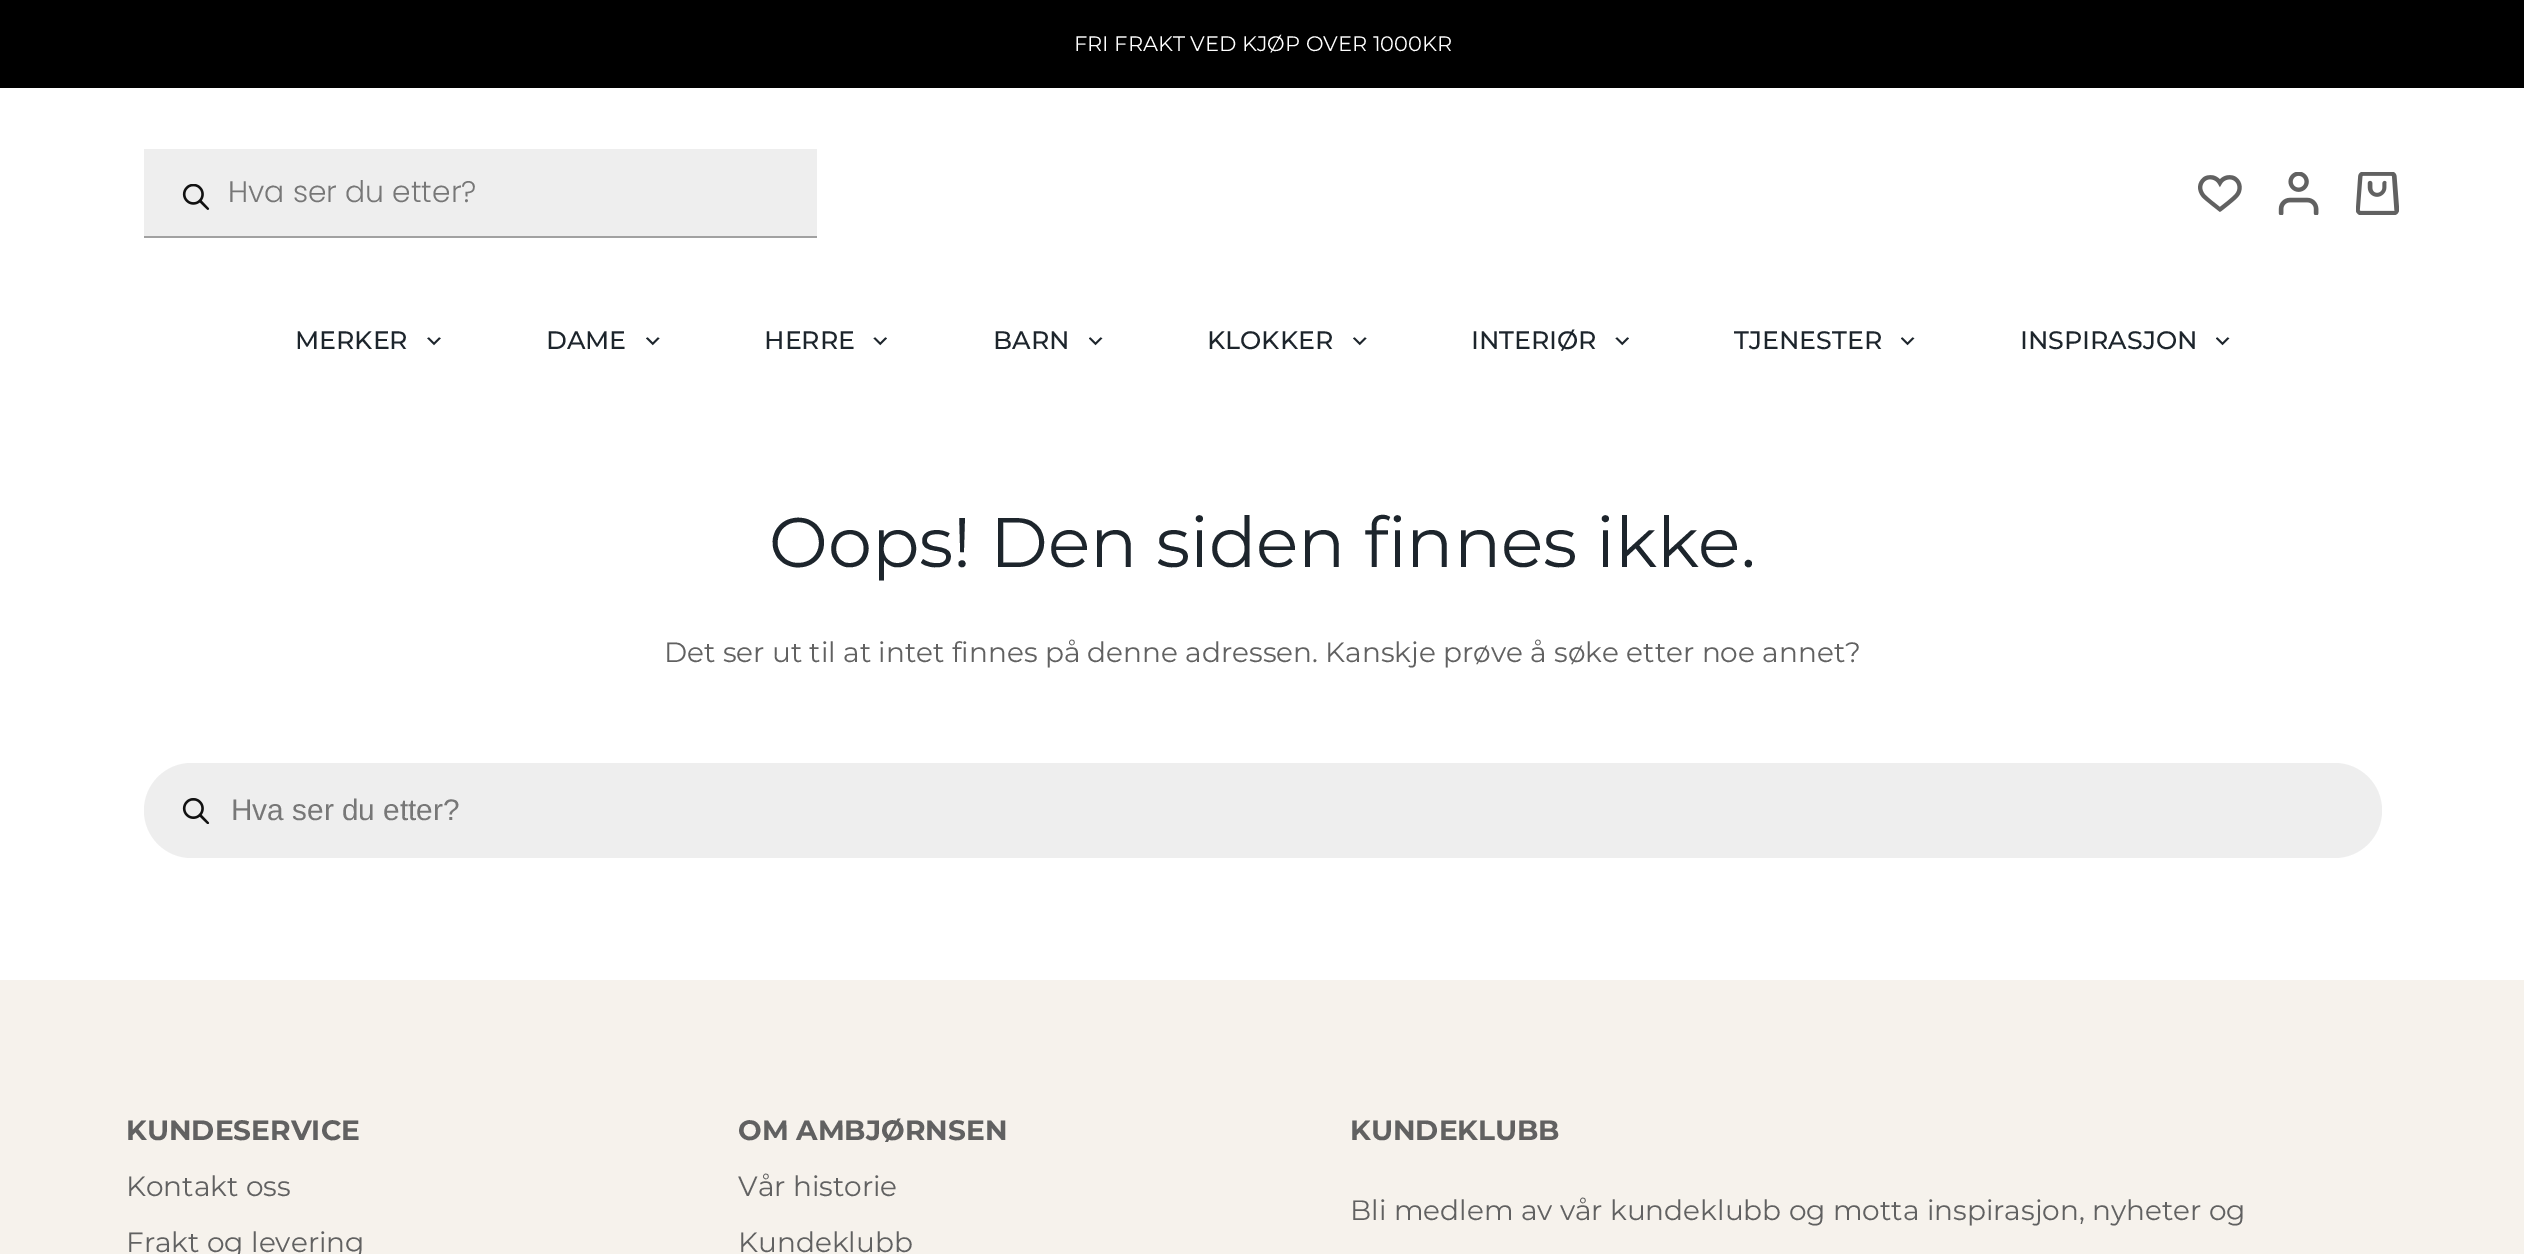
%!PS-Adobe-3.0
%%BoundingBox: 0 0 2524 1254
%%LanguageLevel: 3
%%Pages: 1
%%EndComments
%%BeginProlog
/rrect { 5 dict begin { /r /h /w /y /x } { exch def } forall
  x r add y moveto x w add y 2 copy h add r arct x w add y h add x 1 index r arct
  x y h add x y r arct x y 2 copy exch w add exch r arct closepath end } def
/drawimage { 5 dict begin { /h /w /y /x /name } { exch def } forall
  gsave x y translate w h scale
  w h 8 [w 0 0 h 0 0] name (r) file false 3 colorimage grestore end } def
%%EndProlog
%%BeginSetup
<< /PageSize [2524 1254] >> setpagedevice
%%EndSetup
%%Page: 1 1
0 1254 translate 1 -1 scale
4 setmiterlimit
1 setgray
0 0 2524 1254 rectfill
0 setgray
0 0 2524 88 rectfill
0.933 setgray
144 149 673 87 rectfill
(images/1.raw) 182 184 28 26 drawimage
0.631 setgray
144 236 673 2 rectfill
(images/2.raw) 2198 175 44 37 drawimage
(images/3.raw) 2278 172 41 43 drawimage
(images/4.raw) 2356 172 43 43 drawimage
(images/5.raw) 427 337 14 9 drawimage
(images/6.raw) 646 337 14 9 drawimage
(images/7.raw) 873 337 14 9 drawimage
(images/8.raw) 1089 337 14 9 drawimage
(images/6.raw) 1353 337 14 9 drawimage
(images/7.raw) 1615 337 14 9 drawimage
(images/8.raw) 1901 337 14 9 drawimage
(images/8.raw) 2216 337 14 9 drawimage
0.933 setgray
144 763 2238 95 47.5 rrect fill
(images/9.raw) 182 798 28 26 drawimage
0.965 0.949 0.925 setrgbcolor
0 980 2524 274 rectfill
/Montserrat-Regular [21 0 0 -21 0 0] selectfont
1 setgray
1074 51 moveto (FRI FRAKT VED KJØP OVER 1000KR) show
/Poppins-Light [29.75 0 0 -29.75 0 0] selectfont
0.467 setgray
228 202 moveto (Hva ser du etter?) show
/Montserrat-Medium [25.25 0 0 -25.25 0 0] selectfont
0.114 0.145 0.173 setrgbcolor
295 349 moveto (MERKER) show
546 349 moveto (DAME) show
764 349 moveto (HERRE) show
993 349 moveto (BARN) show
1207 349 moveto (KLOKKER) show
1471 349 moveto (INTERIØR) show
1734 349 moveto (TJENESTER) show
2020 349 moveto (INSPIRASJON) show
/Montserrat-Regular [70 0 0 -70 0 0] selectfont
769 567 moveto (Oops! Den siden finnes ikke.) show
/Montserrat-Regular [28 0 0 -28 0 0] selectfont
0.38 setgray
664 662 moveto (Det ser ut til at intet finnes på denne adressen. Kanskje prøve å søke etter noe annet?) show
/LiberationSans-Regular [29.75 0 0 -29.75 0 0] selectfont
0.467 setgray
231 820 moveto (Hva ser du etter?) show
/Montserrat-Bold [28 0 0 -28 0 0] selectfont
0.38 setgray
126 1140 moveto (KUNDESERVICE) show
/Montserrat-Regular [28 0 0 -28 0 0] selectfont
126 1196 moveto (Kontakt oss) show
126 1252 moveto (Frakt og levering) show
/Montserrat-Bold [28 0 0 -28 0 0] selectfont
738 1140 moveto (OM AMBJØRNSEN) show
/Montserrat-Regular [28 0 0 -28 0 0] selectfont
738 1196 moveto (Vår historie) show
738 1252 moveto (Kundeklubb) show
/Montserrat-Bold [28 0 0 -28 0 0] selectfont
1350 1140 moveto (KUNDEKLUBB) show
/Montserrat-Regular [28 0 0 -28 0 0] selectfont
1350 1220 moveto (Bli medlem av vår kundeklubb og motta inspirasjon, nyheter og) show
showpage
%%EOF
